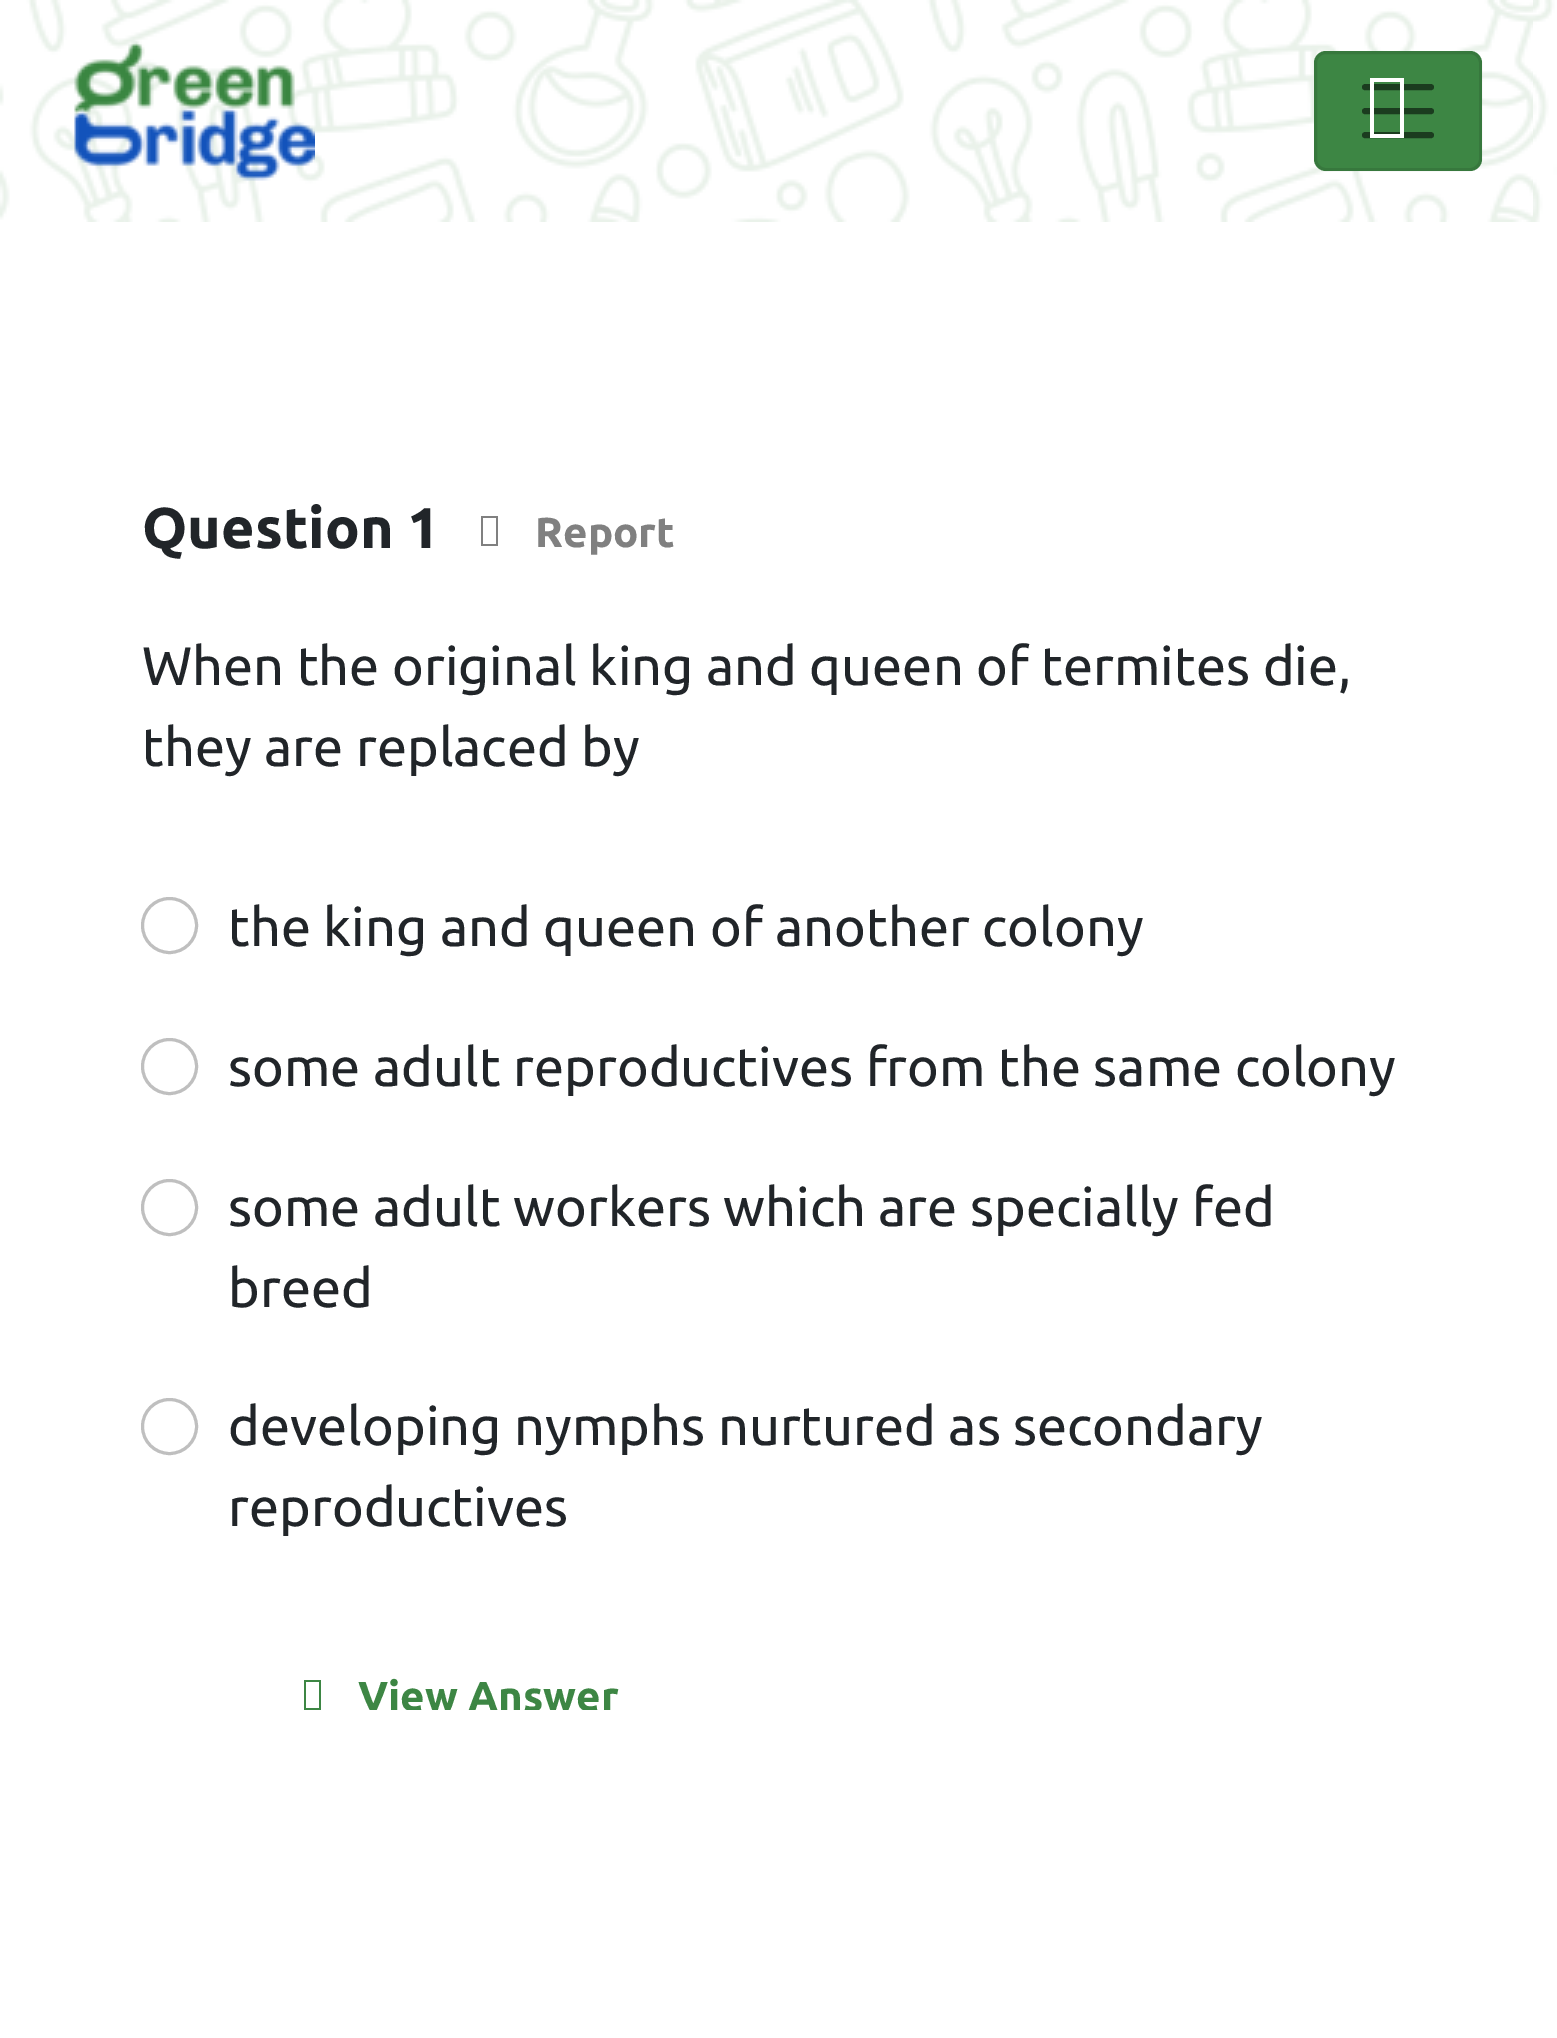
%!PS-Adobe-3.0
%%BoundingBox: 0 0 1557 2038
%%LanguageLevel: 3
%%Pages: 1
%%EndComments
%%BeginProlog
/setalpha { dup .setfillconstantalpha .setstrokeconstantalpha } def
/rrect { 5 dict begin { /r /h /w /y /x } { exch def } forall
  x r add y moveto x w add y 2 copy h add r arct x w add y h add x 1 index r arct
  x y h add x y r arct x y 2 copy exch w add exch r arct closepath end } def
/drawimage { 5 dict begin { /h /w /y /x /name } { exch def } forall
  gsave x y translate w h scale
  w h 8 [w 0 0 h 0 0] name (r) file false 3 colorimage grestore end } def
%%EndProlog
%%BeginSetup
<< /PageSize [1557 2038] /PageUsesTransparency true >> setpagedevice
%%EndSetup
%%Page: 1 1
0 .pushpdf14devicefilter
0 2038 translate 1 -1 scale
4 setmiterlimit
1 setgray
0 0 1557 2038 rectfill
(images/1.raw) 0 0 1557 222 drawimage
(images/2.raw) 74 41 241 140 drawimage
0.239 0.525 0.267 setrgbcolor
1314 51 168 120 12 rrect fill
0.1 setalpha
0 setgray
3 setlinewidth
1315.5 52.5 165 117 10.5 rrect stroke
1 setalpha
0.106 0.235 0.122 setrgbcolor
6 setlinewidth
1 setlinecap
newpath 1365 87 moveto 1431 87 lineto 1365 111 moveto 1431 111 lineto 1365 135 moveto 1431 135 lineto stroke
1 setgray
newpath 1370 138 moveto 1370 78 lineto 1404 78 lineto 1404 138 lineto closepath 1374 134 moveto 1400 134 lineto 1400 82 lineto 1374 82 lineto closepath fill
0.502 setgray
newpath 481 546 moveto 481 516 lineto 498 516 lineto 498 546 lineto closepath 483 544 moveto 496 544 lineto 496 518 lineto 483 518 lineto closepath fill
0.749 setgray
3 setlinewidth
0 setlinecap
newpath 169.5 925.5 27 0 360 arc closepath stroke
newpath 169.5 1066.5 27 0 360 arc closepath stroke
newpath 169.5 1207.5 27 0 360 arc closepath stroke
newpath 169.5 1426.5 27 0 360 arc closepath stroke
0.239 0.525 0.267 setrgbcolor
newpath 304 1710 moveto 304 1680 lineto 321 1680 lineto 321 1710 lineto closepath 306 1708 moveto 319 1708 lineto 319 1682 lineto 306 1682 lineto closepath fill
/Ubuntu-Bold [57.5 0 0 -57.5 0 0] selectfont
0.129 0.145 0.161 setrgbcolor
142 548 moveto (Question 1) show
/Ubuntu-Bold [42 0 0 -42 0 0] selectfont
0.502 setgray
535 547 moveto (Report) show
/Ubuntu-Regular [54 0 0 -54 0 0] selectfont
0.129 0.145 0.161 setrgbcolor
142 685 moveto (When the original king and queen of termites die,) show
142 766 moveto (they are replaced by) show
228 946 moveto (the king and queen of another colony) show
228 1086 moveto (some adult reproductives from the same colony) show
228 1226 moveto (some adult workers which are specially fed) show
228 1307 moveto (breed) show
228 1445 moveto (developing nymphs nurtured as secondary) show
228 1526 moveto (reproductives) show
gsave
111 486 1335 1224 rectclip
/Ubuntu-Bold [42 0 0 -42 0 0] selectfont
0.239 0.525 0.267 setrgbcolor
358 1711 moveto (View Answer) show
grestore
.poppdf14devicefilter showpage
%%EOF
